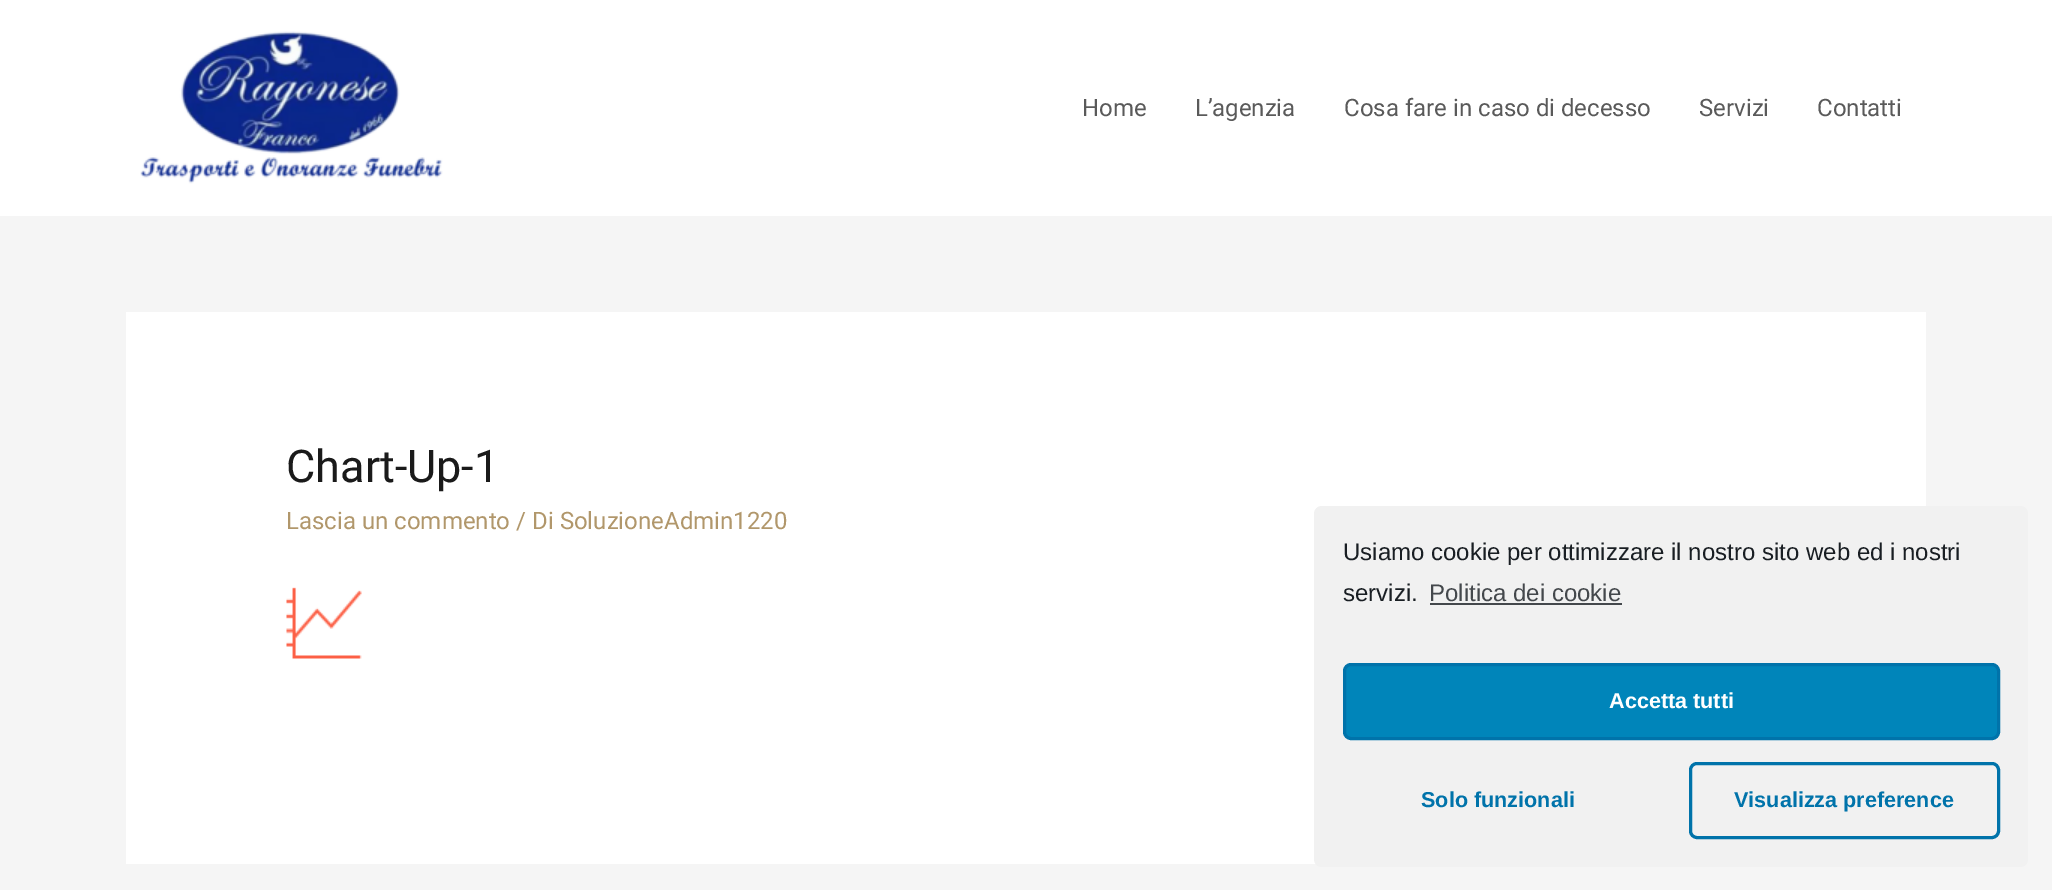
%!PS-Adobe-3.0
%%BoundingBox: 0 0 2052 890
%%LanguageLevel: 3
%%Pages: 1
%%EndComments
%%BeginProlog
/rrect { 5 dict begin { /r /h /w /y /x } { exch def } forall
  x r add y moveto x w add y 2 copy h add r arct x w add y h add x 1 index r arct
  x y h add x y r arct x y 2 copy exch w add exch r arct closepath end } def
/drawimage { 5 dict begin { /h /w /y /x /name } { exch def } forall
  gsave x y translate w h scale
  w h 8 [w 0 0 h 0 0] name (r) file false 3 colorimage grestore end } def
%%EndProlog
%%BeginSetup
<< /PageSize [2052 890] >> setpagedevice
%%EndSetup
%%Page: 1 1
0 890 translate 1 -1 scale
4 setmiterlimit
0.961 setgray
0 0 2052 890 rectfill
1 setgray
0 0 2052 216 rectfill
(images/1.raw) 140 31 303 153 drawimage
126 312 1800 552 rectfill
(images/2.raw) 286 587 76 72 drawimage
0.945 setgray
1314 506 714 361 8 rrect fill
0.267 0.282 0.298 setrgbcolor
1430 603 192 2 rectfill
0 0.522 0.729 setrgbcolor
1344.5 664.5 654 74 6.5 rrect gsave fill grestore
0 0.451 0.667 setrgbcolor
3 setlinewidth
stroke
1690.5 763.5 308 74 6.5 rrect stroke
/Roboto-Regular [24 0 0 -24 0 0] selectfont
0.353 setgray
1082 116 moveto (Home) show
1195 116 moveto (L) show
/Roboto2-Regular [24 0 0 -24 0 0] selectfont
1208 116 moveto (’) show
/Roboto-Regular [24 0 0 -24 0 0] selectfont
1212 116 moveto (agenzia) show
1344 116 moveto (Cosa fare in caso di decesso) show
1699 116 moveto (Servizi) show
1817 116 moveto (Contatti) show
/Roboto-Regular [45 0 0 -45 0 0] selectfont
0.102 setgray
286 482 moveto (Chart) show
/Roboto2-Regular [45 0 0 -45 0 0] selectfont
395 482 moveto (-) show
/Roboto-Regular [45 0 0 -45 0 0] selectfont
407 482 moveto (Up) show
/Roboto2-Regular [45 0 0 -45 0 0] selectfont
461 482 moveto (-) show
/Roboto-Regular [45 0 0 -45 0 0] selectfont
474 482 moveto (1) show
/Roboto-Regular [24 0 0 -24 0 0] selectfont
0.694 0.592 0.42 setrgbcolor
286 529 moveto (Lascia un commento) show
/Roboto2-Regular [24 0 0 -24 0 0] selectfont
516 529 moveto (/) show
/Roboto-Regular [24 0 0 -24 0 0] selectfont
532 529 moveto (Di SoluzioneAdmin1220) show
/LiberationSans-Regular [24 0 0 -24 0 0] selectfont
0.098 0.118 0.137 setrgbcolor
1343 560 moveto (Usiamo cookie per ottimizzare il nostro sito web ed i nostri) show
1343 601 moveto (servizi.) show
0.267 0.282 0.298 setrgbcolor
1429 601 moveto (Politica dei cookie) show
/LiberationSans-Bold [21.6 0 0 -21.6 0 0] selectfont
1 setgray
1609 708 moveto (Accetta tutti) show
0 0.451 0.667 setrgbcolor
1421 807 moveto (Solo funzionali) show
1734 807 moveto (Visualizza preference) show
showpage
%%EOF
